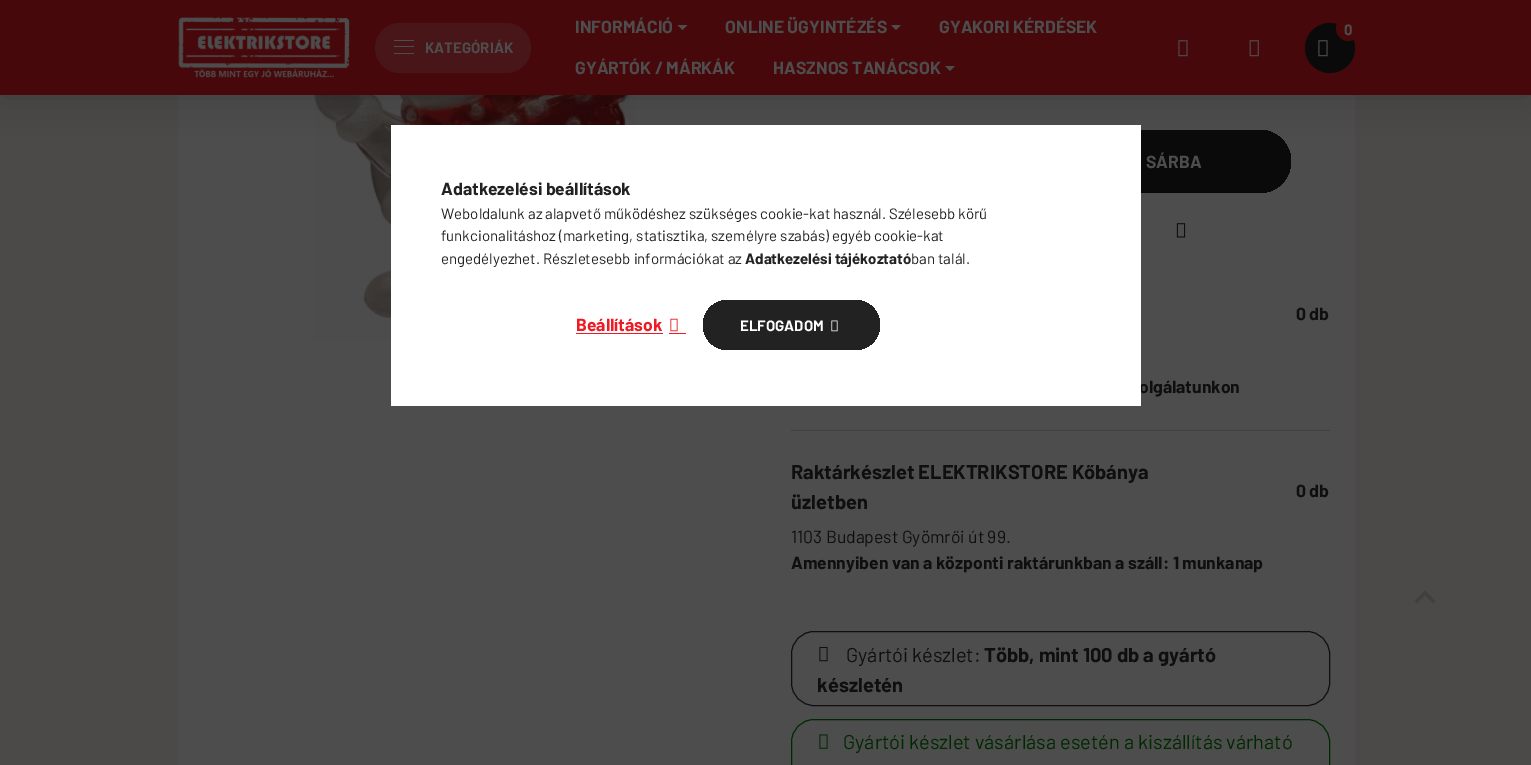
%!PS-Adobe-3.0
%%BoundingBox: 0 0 1531 765
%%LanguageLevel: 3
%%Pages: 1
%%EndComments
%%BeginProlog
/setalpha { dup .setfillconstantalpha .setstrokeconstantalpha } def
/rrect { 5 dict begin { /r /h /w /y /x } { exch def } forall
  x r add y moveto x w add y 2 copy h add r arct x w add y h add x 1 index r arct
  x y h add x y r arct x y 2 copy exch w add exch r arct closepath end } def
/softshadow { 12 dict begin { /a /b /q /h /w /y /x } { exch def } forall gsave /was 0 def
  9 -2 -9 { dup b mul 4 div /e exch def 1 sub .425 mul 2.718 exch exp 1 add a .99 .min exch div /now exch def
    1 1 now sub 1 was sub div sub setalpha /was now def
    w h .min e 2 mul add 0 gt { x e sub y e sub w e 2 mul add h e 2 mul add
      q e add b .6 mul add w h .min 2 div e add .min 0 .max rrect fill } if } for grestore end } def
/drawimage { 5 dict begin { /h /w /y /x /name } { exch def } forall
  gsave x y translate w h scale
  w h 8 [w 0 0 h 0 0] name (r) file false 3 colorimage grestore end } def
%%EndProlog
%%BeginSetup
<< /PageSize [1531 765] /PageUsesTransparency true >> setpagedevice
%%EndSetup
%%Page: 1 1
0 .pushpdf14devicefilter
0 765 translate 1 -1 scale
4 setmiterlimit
0.294 0.29 0.286 setrgbcolor
0 0 1531 765 rectfill
0.302 setgray
178 95 1177 670 rectfill
(images/5.raw) 314 95 321 245 drawimage
gsave 1004 130 287 63 31.5 rrect clip newpath
<< /ShadingType 2 /ColorSpace /DeviceRGB /Coords [1004 161 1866 161] /Extend [true true] /Function << /FunctionType 3 /Domain [0 1] /Functions [<< /FunctionType 2 /Domain [0 1] /C0 [0.039 0.039 0.039] /C1 [0.039 0.039 0.039] /N 1 >> << /FunctionType 2 /Domain [0 1] /C0 [0.039 0.039 0.039] /C1 [0.278 0.031 0.043] /N 1 >> << /FunctionType 2 /Domain [0 1] /C0 [0.278 0.031 0.043] /C1 [0.278 0.031 0.043] /N 1 >>] /Bounds [0.33 0.67] /Encode [0 1 0 1 0 1] >> >> shfill grestore
0 setgray
0 0 1531 95 0 19 0.2 softshadow
0.278 0.031 0.043 setrgbcolor
0 0 1531 95 rectfill
(images/1.raw) 178 17 172 61 drawimage
0.282 0.086 0.094 setrgbcolor
375 23 156 50 25 rrect fill
0.302 setgray
394 40 20 1 rectfill
394 46 20 1 rectfill
394 53 20 1 rectfill
newpath 677.5 25 moveto 687.5 25 lineto 682.5 30 lineto closepath fill
newpath 891 25 moveto 901 25 lineto 896 30 lineto closepath fill
newpath 945 66 moveto 955 66 lineto 950 71 lineto closepath fill
0.039 setgray
newpath 1330 48 25 0 360 arc closepath fill
0.278 0.031 0.043 setrgbcolor
newpath 1348.5 28.5 12.5 0 360 arc closepath fill
(images/2.raw) 1318 40 10 17 drawimage
(images/3.raw) 1178 40 10 17 drawimage
(images/4.raw) 1249 40 10 17 drawimage
(images/6.raw) 1176 223 10 15 drawimage
0.251 setgray
791 430 539 1 rectfill
0.059 setgray
791.5 631.5 538 74 22.5 rrect stroke
(images/7.raw) 819 646 9 16 drawimage
0 0.161 0 setrgbcolor
791.5 719.5 538 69 22.5 rrect stroke
(images/8.raw) 819 734 9 15 drawimage
0.255 0.251 0.247 setrgbcolor
newpath 1433 603.5 moveto 1422.5 593 lineto 1425 590.5 lineto 1435.5 601 lineto closepath fill
newpath 1414.5 601 moveto 1425 590.5 lineto 1427.5 593 lineto 1417 603.5 lineto closepath fill
/Barlow-Bold [15 0 0 -15 0 0] selectfont
0.302 setgray
425 53 moveto (KATEGÓRIÁK) show
/Barlow-Bold [17.5 0 0 -17.5 0 0] selectfont
575 33 moveto (INFORMÁCIÓ) show
725 33 moveto (ONLINE ÜGYINTÉZÉS) show
939 33 moveto (GYAKORI KÉRDÉSEK) show
575 74 moveto (GYÁRTÓK / MÁRKÁK) show
773 74 moveto (HASZNOS TANÁCSOK) show
/Barlow-Bold [15 0 0 -15 0 0] selectfont
1344 35 moveto (0) show
/Barlow-Bold [17.5 0 0 -17.5 0 0] selectfont
1146 168 moveto (SÁRBA) show
0.059 setgray
1296 320 moveto (0 db) show
1139 393 moveto (olgálatunkon) show
/Barlow-Bold [20 0 0 -20 0 0] selectfont
791 479 moveto (Raktárkészlet ELEKTRIKSTORE Kőbánya) show
791 509 moveto (üzletben) show
/Barlow-Bold [17.5 0 0 -17.5 0 0] selectfont
1296 497 moveto (0 db) show
/Barlow-Regular [17.5 0 0 -17.5 0 0] selectfont
791 543 moveto (1103 Budapest Gyömrői út 99.) show
/Barlow-Bold [17.5 0 0 -17.5 0 0] selectfont
791 569 moveto (Amennyiben van a központi raktárunkban a száll: 1 munkanap) show
/Barlow-Regular [20 0 0 -20 0 0] selectfont
846 662 moveto (Gyártói készlet:) show
/Barlow-Bold [20 0 0 -20 0 0] selectfont
984 662 moveto (Több, mint 100 db a gyártó) show
817 692 moveto (készletén) show
/Barlow-Regular [20 0 0 -20 0 0] selectfont
0 0.161 0 setrgbcolor
843 749 moveto (Gyártói készlet vásárlása esetén a kiszállítás várható) show
1 setgray
391 125 750 281 rectfill
/Barlow-Bold [17.5 0 0 -17.5 0 0] selectfont
0.133 setgray
441 195 moveto (Adatkezelési beállítások) show
/Barlow-Regular [15 0 0 -15 0 0] selectfont
441 219 moveto (Weboldalunk az alapvető működéshez szükséges cookie-kat használ. Szélesebb körű) show
441 241 moveto (funkcionalitáshoz \(marketing, statisztika, személyre szabás\) egyéb cookie-kat) show
441 264 moveto (engedélyezhet. Részletesebb információkat az) show
/Barlow-Bold [15 0 0 -15 0 0] selectfont
745 264 moveto (Adatkezelési tájékoztató) show
/Barlow-Regular [15 0 0 -15 0 0] selectfont
911 264 moveto (ban talál.) show
/Barlow-Bold [17.5 0 0 -17.5 0 0] selectfont
0.929 0.106 0.141 setrgbcolor
576 331 moveto (Beállítások) show
576 333 87 1 rectfill
(images/9.raw) 670 318 8 14 drawimage
669 333 17 1 rectfill
gsave 703 300 177 50 25 rrect clip newpath
<< /ShadingType 2 /ColorSpace /DeviceRGB /Coords [703 325 1235 325] /Extend [true true] /Function << /FunctionType 3 /Domain [0 1] /Functions [<< /FunctionType 2 /Domain [0 1] /C0 [0.133 0.133 0.133] /C1 [0.133 0.133 0.133] /N 1 >> << /FunctionType 2 /Domain [0 1] /C0 [0.133 0.133 0.133] /C1 [0.929 0.106 0.141] /N 1 >> << /FunctionType 2 /Domain [0 1] /C0 [0.929 0.106 0.141] /C1 [0.929 0.106 0.141] /N 1 >>] /Bounds [0.33 0.67] /Encode [0 1 0 1 0 1] >> >> shfill grestore
/Barlow-Bold [15 0 0 -15 0 0] selectfont
1 setgray
740 331 moveto (ELFOGADOM) show
(images/10.raw) 831 320 7 12 drawimage
.poppdf14devicefilter showpage
%%EOF
